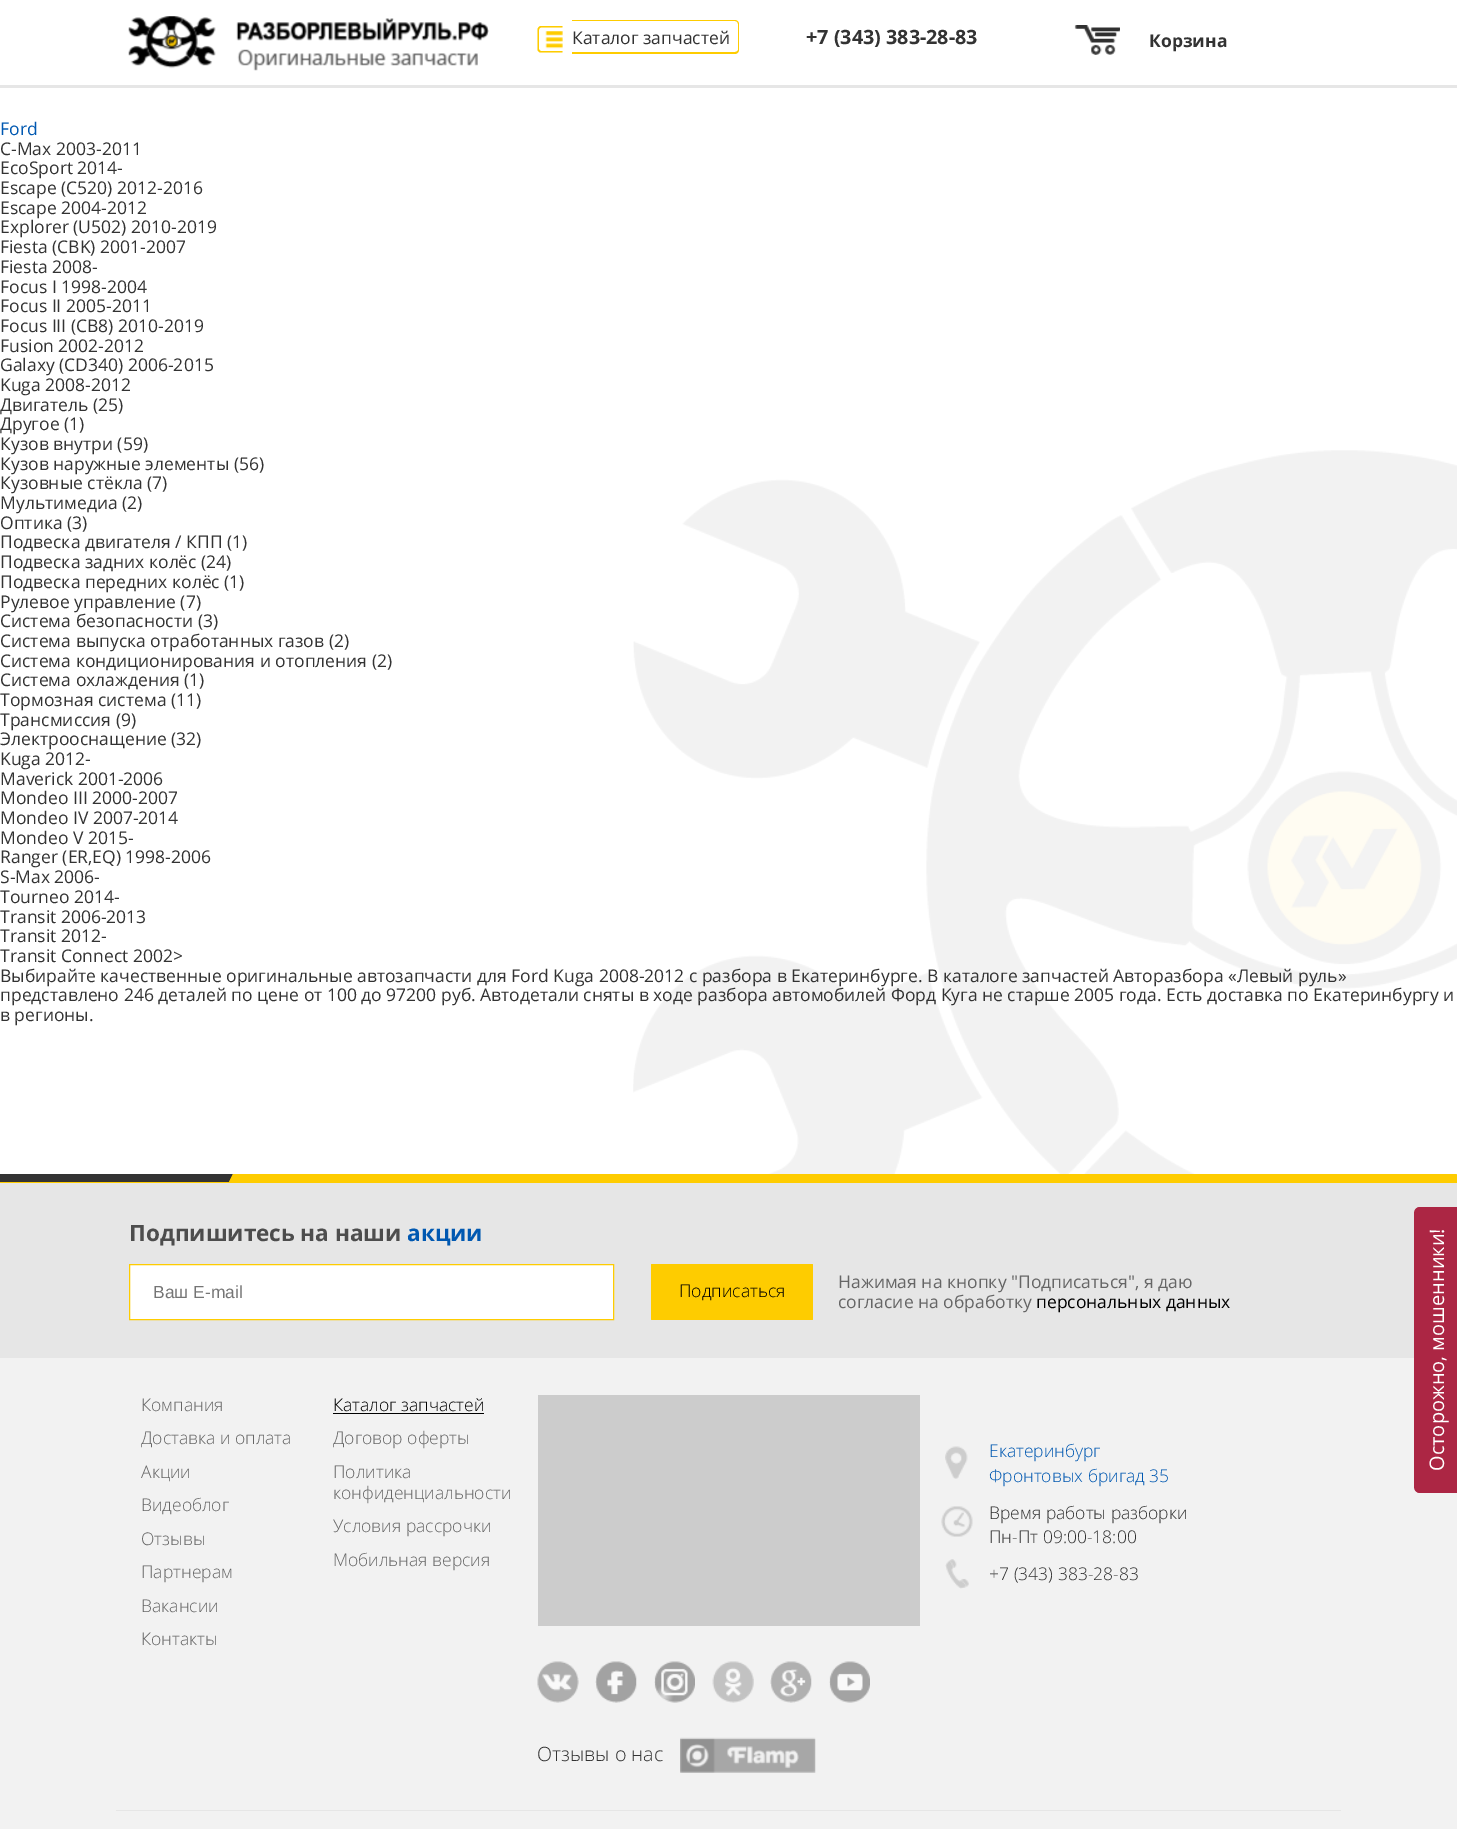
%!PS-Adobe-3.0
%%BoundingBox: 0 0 1457 1829
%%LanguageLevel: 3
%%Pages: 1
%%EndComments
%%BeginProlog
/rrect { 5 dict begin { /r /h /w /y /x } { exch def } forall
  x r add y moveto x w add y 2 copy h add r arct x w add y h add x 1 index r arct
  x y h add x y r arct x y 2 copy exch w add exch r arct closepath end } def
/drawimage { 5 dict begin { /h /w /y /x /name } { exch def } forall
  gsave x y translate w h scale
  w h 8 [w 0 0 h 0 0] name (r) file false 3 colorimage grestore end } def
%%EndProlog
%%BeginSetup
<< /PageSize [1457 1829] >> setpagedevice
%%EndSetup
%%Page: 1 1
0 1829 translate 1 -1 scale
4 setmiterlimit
1 setgray
0 0 1457 1829 rectfill
0.902 setgray
0 85 1457 3 rectfill
(images/1.raw) 128 16 361 55 drawimage
0.996 0.8 0 setrgbcolor
newpath 541 26 moveto 562.5 26 lineto 562.5 52.5 lineto 541 52.5 lineto 539 52.5 537.5 51 537.5 49 curveto 537.5 30 lineto 537.5 28 539 26 541 26 curveto closepath 541 27.5 moveto 562.5 27.5 lineto 562.5 51 lineto 541 51 lineto 540 51 539 50 539 49 curveto 539 30 lineto 539 28.5 540 27.5 541 27.5 curveto closepath eofill
newpath 572 20 moveto 735 20 lineto 737 20 739 22 739 24 curveto 739 50 lineto 739 52 737 54 735 54 curveto 572 54 lineto closepath 572 21 moveto 735 21 lineto 736 21 738 22 738 24 curveto 738 50 lineto 738 51 736 52 735 52 curveto 572 52 lineto closepath eofill
(images/2.raw) 545 31 18 18 drawimage
(images/3.raw) 1074 25 46 30 drawimage
(images/4.raw) 633 450 824 724 drawimage
0.949 setgray
0 1358 1457 471 rectfill
0.996 0.8 0 setrgbcolor
0 1175 1457 8 rectfill
0.2 setgray
newpath 0 1174 moveto 233 1174 lineto 229 1182 lineto -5 1182 lineto closepath fill
0.996 0.8 0 setrgbcolor
newpath 233 1174 moveto 1457 1174 lineto 1453 1182 lineto 229 1182 lineto closepath fill
0.902 setgray
0 1183 1457 175 rectfill
1 setgray
newpath 129.5 1264.5 moveto 613.5 1264.5 lineto 613.5 1319.5 lineto 129.5 1319.5 lineto closepath gsave fill grestore
0.996 0.8 0 setrgbcolor
stroke
651 1264 162 56 1 rrect fill
0 setgray
333 1413 151 1 rectfill
(images/5.raw) 945 1446 23 33 drawimage
(images/6.raw) 941 1506 32 31 drawimage
(images/7.raw) 945 1559 24 30 drawimage
0.8 setgray
538 1395 382 231 rectfill
(images/8.raw) 537 1661 42 42 drawimage
(images/9.raw) 595 1661 42 42 drawimage
(images/10.raw) 654 1661 41 42 drawimage
(images/11.raw) 712 1661 42 42 drawimage
(images/12.raw) 770 1661 42 42 drawimage
(images/13.raw) 829 1661 41 42 drawimage
(images/14.raw) 680 1737 136 36 drawimage
0.902 setgray
116 1810 1225 1 rectfill
0.675 0.149 0.267 setrgbcolor
newpath 1414 1486 moveto 1414 1214 lineto 1414 1210 1416 1207 1420 1207 curveto 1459 1207 lineto 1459 1493 lineto 1420 1493 lineto 1416 1493 1414 1490 1414 1486 curveto closepath fill
/OpenSans-Regular [17.5 0 0 -17.5 0 0] selectfont
0.2 setgray
572 44 moveto (Каталог запчастей) show
/OpenSans-Bold [19.75 0 0 -19.75 0 0] selectfont
806 44 moveto (+7 \(343\) 383-28-83) show
/OpenSans-Bold [17.5 0 0 -17.5 0 0] selectfont
1149 47 moveto (Корзина) show
/OpenSans-Regular [17.5 0 0 -17.5 0 0] selectfont
0 0.345 0.694 setrgbcolor
0 135 moveto (Ford) show
0.2 setgray
0 155 moveto (C-Max 2003-2011) show
0 174 moveto (EcoSport 2014-) show
0 194 moveto (Escape \(C520\) 2012-2016) show
0 214 moveto (Escape 2004-2012) show
0 233 moveto (Explorer \(U502\) 2010-2019) show
0 253 moveto (Fiesta \(CBK\) 2001-2007) show
0 273 moveto (Fiesta 2008-) show
0 293 moveto (Focus I 1998-2004) show
0 312 moveto (Focus II 2005-2011) show
0 332 moveto (Focus III \(CB8\) 2010-2019) show
0 352 moveto (Fusion 2002-2012) show
0 371 moveto (Galaxy \(CD340\) 2006-2015) show
0 391 moveto (Kuga 2008-2012) show
0 411 moveto (Двигатель \(25\)) show
0 430 moveto (Другое \(1\)) show
0 450 moveto (Кузов внутри \(59\)) show
0 470 moveto (Кузов наружные элементы \(56\)) show
0 489 moveto (Кузовные стёкла \(7\)) show
0 509 moveto (Мультимедиа \(2\)) show
0 529 moveto (Оптика \(3\)) show
0 548 moveto (Подвеска двигателя / КПП \(1\)) show
0 568 moveto (Подвеска задних колёс \(24\)) show
0 588 moveto (Подвеска передних колёс \(1\)) show
0 608 moveto (Рулевое управление \(7\)) show
0 627 moveto (Система безопасности \(3\)) show
0 647 moveto (Система выпуска отработанных газов \(2\)) show
0 667 moveto (Система кондиционирования и отопления \(2\)) show
0 686 moveto (Система охлаждения \(1\)) show
0 706 moveto (Тормозная система \(11\)) show
0 726 moveto (Трансмиссия \(9\)) show
0 745 moveto (Электрооснащение \(32\)) show
0 765 moveto (Kuga 2012-) show
0 785 moveto (Maverick 2001-2006) show
0 804 moveto (Mondeo III 2000-2007) show
0 824 moveto (Mondeo IV 2007-2014) show
0 844 moveto (Mondeo V 2015-) show
0 863 moveto (Ranger \(ER,EQ\) 1998-2006) show
0 883 moveto (S-Max 2006-) show
0 903 moveto (Tourneo 2014-) show
0 923 moveto (Transit 2006-2013) show
0 942 moveto (Transit 2012-) show
0 962 moveto (Transit Connect 2002>) show
0 982 moveto (Выбирайте качественные оригинальные автозапчасти для Ford Kuga 2008-2012 с разбора в Екатеринбурге. В каталоге запчастей Авторазбора «Левый руль») show
0 1001 moveto (представлено 246 деталей по цене от 100 до 97200 руб. Автодетали сняты в ходе разбора автомобилей Форд Куга не старше 2005 года. Есть доставка по Екатеринбургу и) show
0 1021 moveto (в регионы.) show
/OpenSans-Bold [22.5 0 0 -22.5 0 0] selectfont
0.302 setgray
129 1241 moveto (Подпишитесь на наши) show
0 0.345 0.694 setrgbcolor
407 1241 moveto (акции) show
/LiberationSans-Regular [17.5 0 0 -17.5 0 0] selectfont
0.459 setgray
153 1298 moveto (Ваш E-mail) show
/OpenSans-Light [17.5 0 0 -17.5 0 0] selectfont
0 setgray
679 1297 moveto (Подписаться) show
/OpenSans-Regular [17.5 0 0 -17.5 0 0] selectfont
0.4 setgray
838 1288 moveto (Нажимая на кнопку "Подписаться", я даю) show
838 1308 moveto (согласие на обработку) show
0 setgray
1036 1308 moveto (персональных данных) show
/OpenSans-Light [17.5 0 0 -17.5 0 0] selectfont
0.4 setgray
141 1411 moveto (Компания) show
141 1444 moveto (Доставка и оплата) show
141 1478 moveto (Акции) show
141 1511 moveto (Видеоблог) show
141 1545 moveto (Отзывы) show
141 1578 moveto (Партнерам) show
141 1612 moveto (Вакансии) show
141 1645 moveto (Контакты) show
0 setgray
333 1411 moveto (Каталог запчастей) show
0.4 setgray
333 1444 moveto (Договор оферты) show
333 1478 moveto (Политика) show
333 1499 moveto (конфиденциальности) show
333 1532 moveto (Условия рассрочки) show
333 1566 moveto (Мобильная версия) show
0 0.345 0.694 setrgbcolor
989 1457 moveto (Екатеринбург) show
989 1482 moveto (Фронтовых бригад 35) show
0.2 setgray
989 1519 moveto (Время работы разборки) show
989 1543 moveto (Пн-Пт 09:00-18:00) show
989 1580 moveto (+7 \(343\) 383-28-83) show
/OpenSans-Light [19.75 0 0 -19.75 0 0] selectfont
537 1761 moveto (Отзывы о нас) show
/OpenSans-Regular [20 0 0 -20 0 0] selectfont
1 setgray
gsave 1444 1471 translate -90 rotate 0 0 moveto (Осторожно, мошенники!) show grestore
showpage
%%EOF
